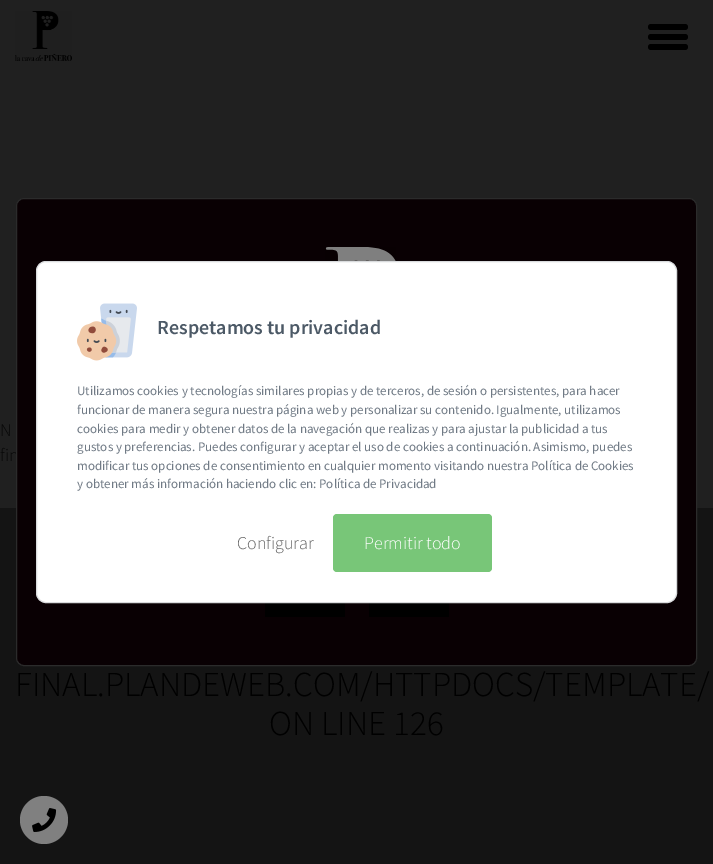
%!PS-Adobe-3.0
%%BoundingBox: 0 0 713 864
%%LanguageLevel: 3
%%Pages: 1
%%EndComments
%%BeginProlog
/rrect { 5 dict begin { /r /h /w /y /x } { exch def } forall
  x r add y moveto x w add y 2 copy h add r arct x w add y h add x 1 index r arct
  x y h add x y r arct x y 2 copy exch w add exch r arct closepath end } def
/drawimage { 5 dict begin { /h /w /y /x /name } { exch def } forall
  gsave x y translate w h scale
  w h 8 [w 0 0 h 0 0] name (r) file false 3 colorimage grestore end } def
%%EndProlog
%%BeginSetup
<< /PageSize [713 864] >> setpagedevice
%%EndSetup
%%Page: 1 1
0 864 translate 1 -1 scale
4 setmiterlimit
0.125 setgray
0 0 713 864 rectfill
(images/1.raw) 15 11 57 50 drawimage
0 setgray
648 24 40 6 3 rrect fill
648 34 40 6 3 rrect fill
648 44 40 6 3 rrect fill
0.078 setgray
0 508 713 356 rectfill
0.502 setgray
newpath 44 820 24 0 360 arc closepath fill
(images/4.raw) 32 808 25 24 drawimage
/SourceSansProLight-Light [18 0 0 -18 0 0] selectfont
0.027 setgray
0 436 moveto (N) show
0 461 moveto (fin) show
0.035 0 0.012 setrgbcolor
16.5 198.5 680 467 7.5 rrect gsave fill grestore
0.169 setgray
stroke
0 setgray
369 603 80 14 rectfill
265 603 80 14 rectfill
(images/2.raw) 325 247 71 14 drawimage
1 setgray
36.5 261.5 640 341 9.5 rrect gsave fill grestore
0.851 0.859 0.867 setrgbcolor
stroke
(images/3.raw) 77 303 60 58 drawimage
/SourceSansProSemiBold-SemiBold [20 0 0 -20 0 0] selectfont
0.298 0.349 0.4 setrgbcolor
157 334 moveto (Respetamos tu privacidad) show
/SourceSansPro-Regular [13 0 0 -13 0 0] selectfont
0.439 0.478 0.522 setrgbcolor
77 395 moveto (Utilizamos cookies y tecnologías similares propias y de terceros, de sesión o persistentes, para hacer) show
77 414 moveto (funcionar de manera segura nuestra página web y personalizar su contenido. Igualmente, utilizamos) show
77 433 moveto (cookies para medir y obtener datos de la navegación que realizas y para ajustar la publicidad a tus) show
77 451 moveto (gustos y preferencias. Puedes configurar y aceptar el uso de cookies a continuación. Asimismo, puedes) show
77 470 moveto (modificar tus opciones de consentimiento en cualquier momento visitando nuestra Política de Cookies) show
77 488 moveto (y obtener más información haciendo clic en: Política de Privacidad) show
/SourceSansProLight-Light [18 0 0 -18 0 0] selectfont
0.4 setgray
237 549 moveto (Configurar) show
0.471 0.776 0.471 setrgbcolor
333 514 159 58 4 rrect fill
1 setgray
364 549 moveto (Permitir todo) show
/SourceSansProLight-Light [35 0 0 -35 0 0] selectfont
0 setgray
15 696 moveto (FINAL.PLANDEWEB.COM/HTTPDOCS/TEMPLATE/) show
269 735 moveto (ON LINE 126) show
showpage
%%EOF
